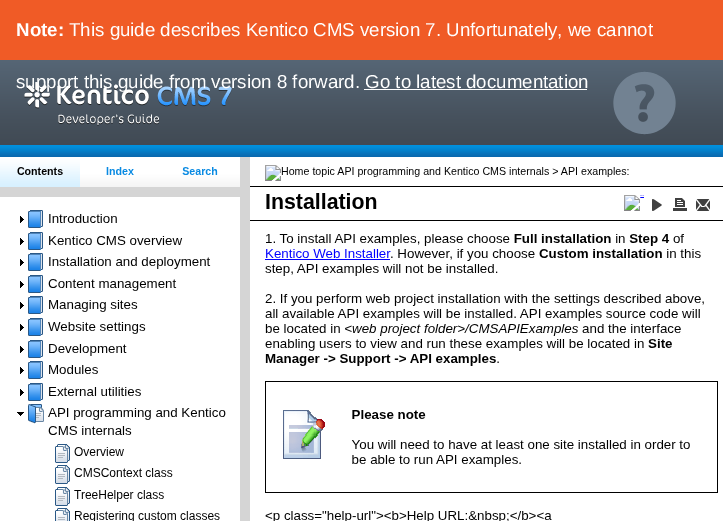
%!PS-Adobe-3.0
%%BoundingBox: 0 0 723 521
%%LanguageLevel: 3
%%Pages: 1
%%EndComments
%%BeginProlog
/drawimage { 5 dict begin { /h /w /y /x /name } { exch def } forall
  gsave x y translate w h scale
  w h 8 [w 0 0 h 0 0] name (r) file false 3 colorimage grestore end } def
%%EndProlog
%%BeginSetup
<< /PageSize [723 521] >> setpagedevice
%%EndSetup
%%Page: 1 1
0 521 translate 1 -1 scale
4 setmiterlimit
1 setgray
0 0 723 521 rectfill
0.941 0.357 0.149 setrgbcolor
0 0 723 60 rectfill
(images/1.raw) 0 60 723 97 drawimage
1 setgray
364 89 223 1 rectfill
(images/2.raw) 24 82 208 44 drawimage
(images/3.raw) 613 71 63 64 drawimage
(images/4.raw) 0 157 250 364 drawimage
(images/5.raw) 250 165 473 356 drawimage
/LiberationSans-Bold [18.7 0 0 -18.7 0 0] selectfont
16 36 moveto (Note:) show
/LiberationSans-Regular [18.7 0 0 -18.7 0 0] selectfont
69 36 moveto (This guide describes Kentico CMS version 7. Unfortunately, we cannot) show
16 88 moveto (support this guide from version 8 forward. Go to latest documentation) show
showpage
%%EOF
